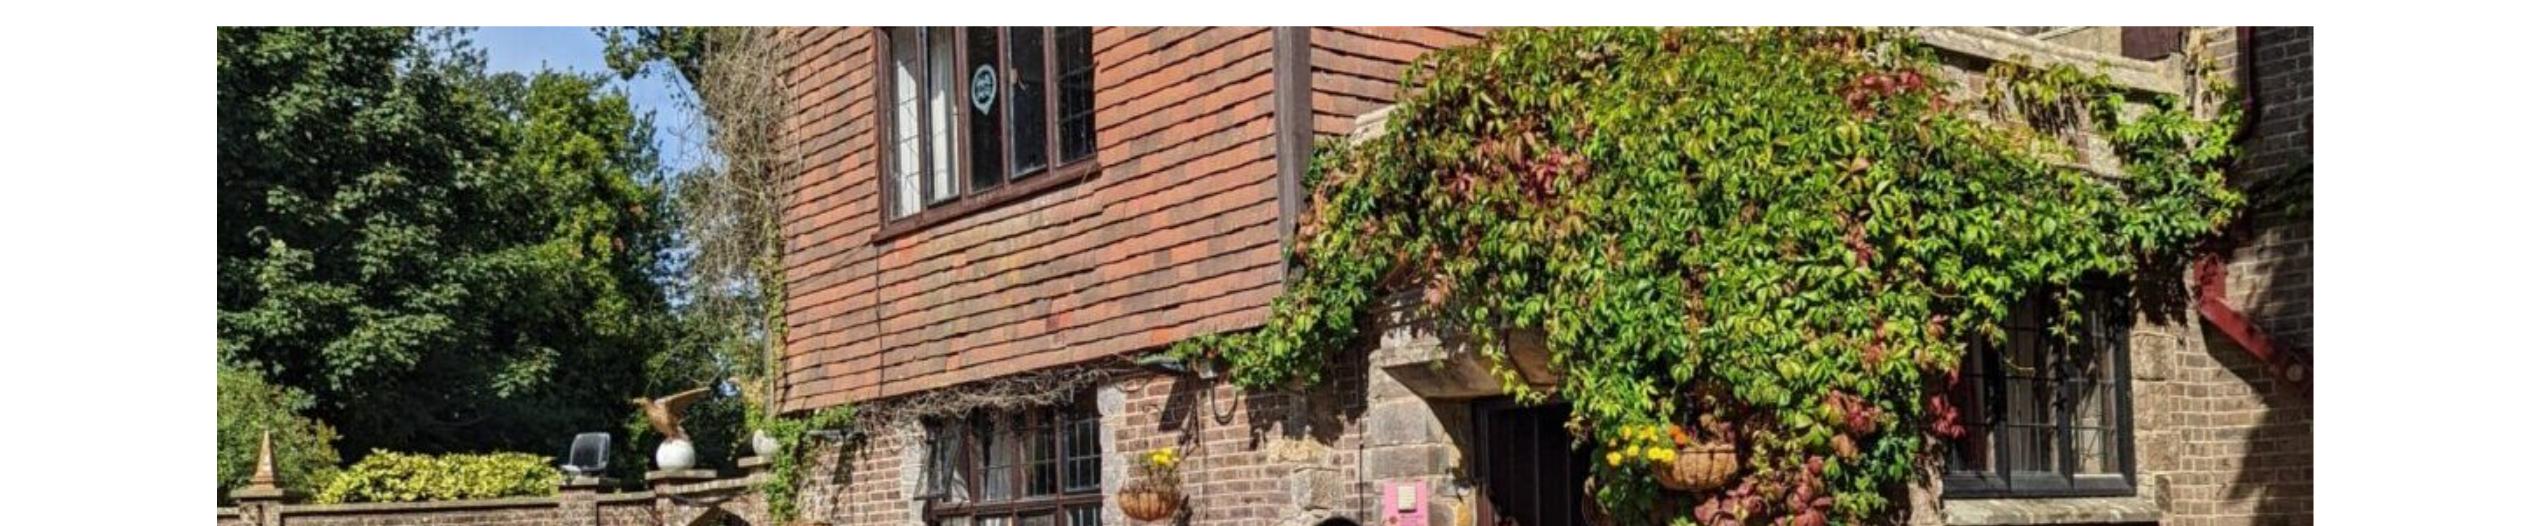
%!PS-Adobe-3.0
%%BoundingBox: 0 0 2530 526
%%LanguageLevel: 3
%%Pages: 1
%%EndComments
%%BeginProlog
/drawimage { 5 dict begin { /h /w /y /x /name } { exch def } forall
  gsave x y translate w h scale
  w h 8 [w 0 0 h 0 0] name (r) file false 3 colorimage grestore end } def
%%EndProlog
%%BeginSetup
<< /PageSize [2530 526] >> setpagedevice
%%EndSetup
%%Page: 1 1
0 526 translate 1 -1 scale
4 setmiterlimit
1 setgray
0 0 2530 526 rectfill
(images/1.raw) 217 26 2097 500 drawimage
showpage
%%EOF
